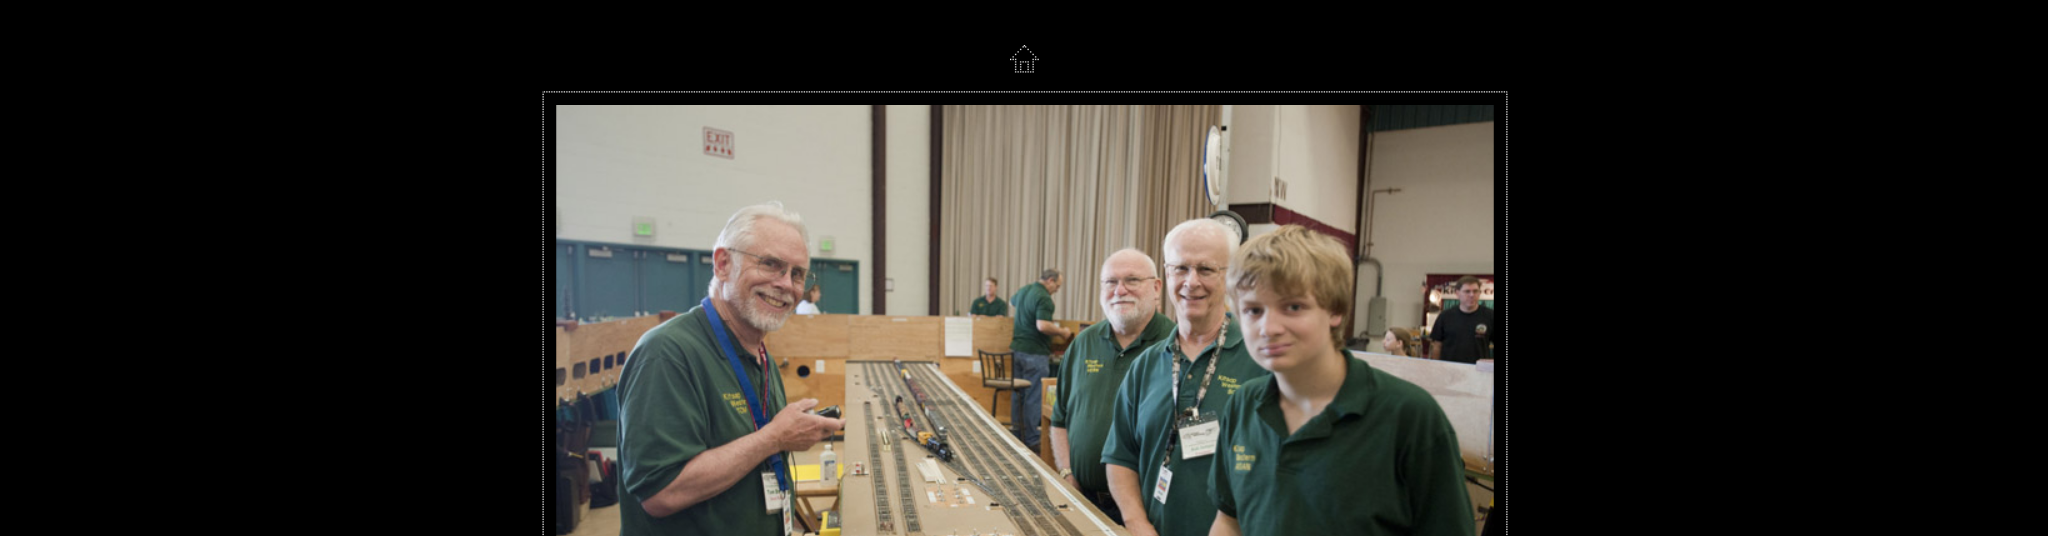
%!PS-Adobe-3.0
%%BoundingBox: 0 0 2048 536
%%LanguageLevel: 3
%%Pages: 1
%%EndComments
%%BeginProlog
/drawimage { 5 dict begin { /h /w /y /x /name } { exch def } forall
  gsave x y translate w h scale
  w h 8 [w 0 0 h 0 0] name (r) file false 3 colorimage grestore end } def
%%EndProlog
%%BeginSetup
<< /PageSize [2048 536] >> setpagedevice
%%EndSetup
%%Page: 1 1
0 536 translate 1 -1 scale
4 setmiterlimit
0 setgray
0 0 2048 536 rectfill
(images/1.raw) 1010 45 29 28 drawimage
(images/2.raw) 542 91 966 2 drawimage
(images/3.raw) 542 92 2 444 drawimage
(images/4.raw) 556 105 938 431 drawimage
(images/5.raw) 1506 92 2 444 drawimage
showpage
%%EOF
